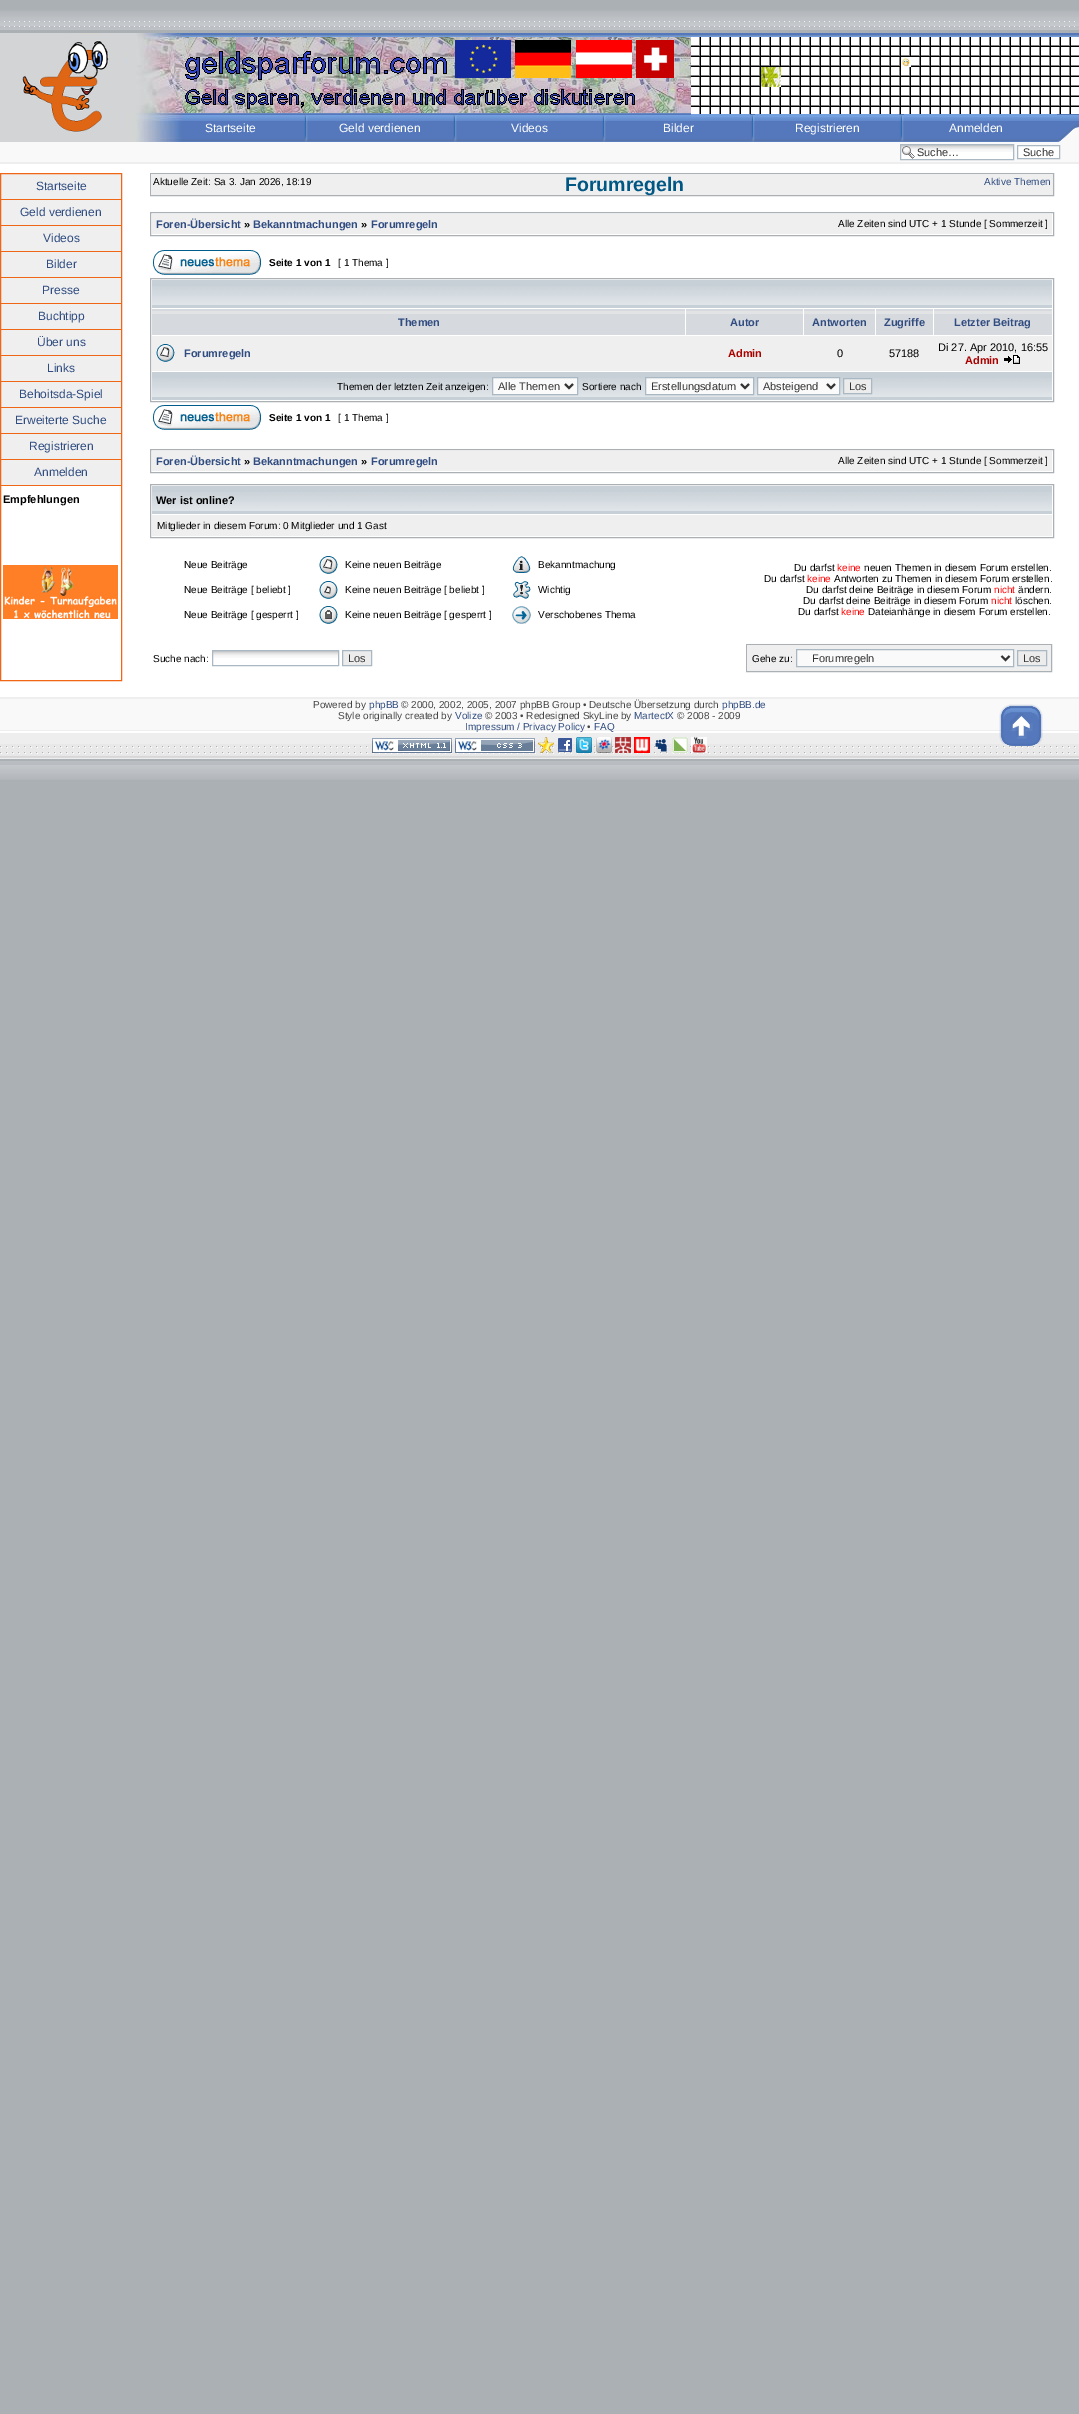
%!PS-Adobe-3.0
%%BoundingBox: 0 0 1079 2414
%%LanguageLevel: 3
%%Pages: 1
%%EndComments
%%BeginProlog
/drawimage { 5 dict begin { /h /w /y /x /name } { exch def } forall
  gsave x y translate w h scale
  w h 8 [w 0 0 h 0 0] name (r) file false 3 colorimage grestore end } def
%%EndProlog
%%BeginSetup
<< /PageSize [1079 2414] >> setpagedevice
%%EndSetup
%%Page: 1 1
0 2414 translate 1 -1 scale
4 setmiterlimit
0.671 0.69 0.71 setrgbcolor
0 0 1079 2414 rectfill
1 setgray
0 164 1079 533 rectfill
(images/1.raw) 0 10 1079 23 drawimage
(images/2.raw) 182 33 897 109 drawimage
(images/3.raw) 0 33 182 109 drawimage
(images/4.raw) 182 37 509 76 drawimage
(images/5.raw) 691 37 388 77 drawimage
(images/6.raw) 901 57 10 10 drawimage
(images/7.raw) 761 67 20 20 drawimage
(images/8.raw) 185 40 489 69 drawimage
0.455 0.627 0.875 setrgbcolor
691 114 366 3 rectfill
(images/9.raw) 304 114 4 28 drawimage
(images/9.raw) 453 114 4 28 drawimage
(images/9.raw) 602 114 4 28 drawimage
(images/10.raw) 750 114 5 28 drawimage
(images/10.raw) 899 114 5 28 drawimage
(images/11.raw) 1057 114 22 28 drawimage
0.976 setgray
0 142 1079 20 rectfill
0.933 setgray
0 162 1079 2 rectfill
1 setgray
901 152 112 7 rectfill
(images/13.raw) 901 145 112 7 drawimage
0.663 0.722 0.761 setrgbcolor
900.5 144.5 113 15 rectstroke
(images/12.raw) 902 146 13 13 drawimage
1 setgray
newpath 1017.5 145.5 moveto 1059.5 145.5 lineto 1059.5 158.5 lineto 1017.5 158.5 lineto closepath gsave fill grestore
0.663 0.722 0.761 setrgbcolor
stroke
0.937 setgray
1 174 120 311 rectfill
0.937 0.4 0.086 setrgbcolor
0.5 173.5 121 507 rectstroke
1 199 120 1 rectfill
1 225 120 1 rectfill
1 251 120 1 rectfill
1 277 120 1 rectfill
1 303 120 1 rectfill
1 329 120 1 rectfill
1 355 120 1 rectfill
1 381 120 1 rectfill
1 407 120 1 rectfill
1 433 120 1 rectfill
1 459 120 1 rectfill
1 485 120 1 rectfill
(images/14.raw) 3 565 115 54 drawimage
0.671 0.69 0.71 setrgbcolor
150.5 173.5 903 22 rectstroke
0.937 setgray
151 174 902 21 rectfill
0.671 0.69 0.71 setrgbcolor
150.5 212.5 903 23 rectstroke
0.937 setgray
152 214 900 20 rectfill
(images/15.raw) 153 250 108 25 drawimage
0.671 0.69 0.71 setrgbcolor
150.5 278.5 903 123 rectstroke
0.78 0.816 0.843 setrgbcolor
152 280 900 28 rectfill
(images/16.raw) 152 286 900 19 drawimage
0.839 0.851 0.871 setrgbcolor
152 309 533 26 rectfill
0.882 0.89 0.898 setrgbcolor
152 311 533 3 rectfill
0.839 0.851 0.871 setrgbcolor
686 309 117 26 rectfill
0.882 0.89 0.898 setrgbcolor
686 311 117 3 rectfill
0.839 0.851 0.871 setrgbcolor
804 309 71 26 rectfill
0.882 0.89 0.898 setrgbcolor
804 311 71 3 rectfill
0.839 0.851 0.871 setrgbcolor
876 309 57 26 rectfill
0.882 0.89 0.898 setrgbcolor
876 311 57 3 rectfill
0.839 0.851 0.871 setrgbcolor
934 309 118 26 rectfill
0.882 0.89 0.898 setrgbcolor
934 311 118 3 rectfill
0.937 setgray
152 336 900 35 rectfill
(images/17.raw) 156 344 19 18 drawimage
(images/18.raw) 1004 355 16 9 drawimage
0.78 0.816 0.843 setrgbcolor
152 372 900 28 rectfill
(images/16.raw) 152 378 900 19 drawimage
0.98 setgray
newpath 492.5 377.5 moveto 577.5 377.5 lineto 577.5 394.5 lineto 492.5 394.5 lineto closepath gsave fill grestore
0.663 0.722 0.761 setrgbcolor
stroke
0.2 setgray
2 setlinewidth
newpath 565 384 moveto 569 388 lineto 573 384 lineto stroke
0.98 setgray
newpath 645.5 377.5 moveto 753.5 377.5 lineto 753.5 394.5 lineto 645.5 394.5 lineto closepath gsave fill grestore
0.663 0.722 0.761 setrgbcolor
1 setlinewidth
stroke
0.2 setgray
2 setlinewidth
newpath 741 384 moveto 745 388 lineto 749 384 lineto stroke
0.98 setgray
newpath 757.5 377.5 moveto 839.5 377.5 lineto 839.5 394.5 lineto 757.5 394.5 lineto closepath gsave fill grestore
0.663 0.722 0.761 setrgbcolor
1 setlinewidth
stroke
0.2 setgray
2 setlinewidth
newpath 827 384 moveto 831 388 lineto 835 384 lineto stroke
0.925 setgray
newpath 843.5 378.5 moveto 871.5 378.5 lineto 871.5 393.5 lineto 843.5 393.5 lineto closepath gsave fill grestore
0.663 0.722 0.761 setrgbcolor
1 setlinewidth
stroke
(images/15.raw) 153 405 108 25 drawimage
0.671 0.69 0.71 setrgbcolor
150.5 449.5 903 23 rectstroke
0.937 setgray
152 451 900 20 rectfill
0.671 0.69 0.71 setrgbcolor
150.5 484.5 903 53 rectstroke
0.78 0.816 0.843 setrgbcolor
152 486 900 28 rectfill
(images/16.raw) 152 492 900 19 drawimage
0.937 setgray
152 515 900 21 rectfill
(images/19.raw) 319 556 19 18 drawimage
(images/20.raw) 512 556 19 17 drawimage
(images/21.raw) 319 581 19 18 drawimage
(images/22.raw) 513 581 18 18 drawimage
(images/23.raw) 319 606 19 18 drawimage
(images/24.raw) 512 606 19 18 drawimage
(images/25.raw) 213 651 125 7 drawimage
0.663 0.722 0.761 setrgbcolor
212.5 650.5 126 15 rectstroke
0.925 setgray
newpath 342.5 650.5 moveto 371.5 650.5 lineto 371.5 665.5 lineto 342.5 665.5 lineto closepath gsave fill grestore
0.663 0.722 0.761 setrgbcolor
stroke
0.671 0.69 0.71 setrgbcolor
746.5 644.5 305 27 rectstroke
0.937 setgray
747 645 304 26 rectfill
0.98 setgray
newpath 796.5 649.5 moveto 1013.5 649.5 lineto 1013.5 666.5 lineto 796.5 666.5 lineto closepath gsave fill grestore
0.663 0.722 0.761 setrgbcolor
stroke
0.2 setgray
2 setlinewidth
newpath 1001.5 656 moveto 1005.5 660 lineto 1009.5 656 lineto stroke
0.925 setgray
newpath 1017.5 650.5 moveto 1046.5 650.5 lineto 1046.5 665.5 lineto 1017.5 665.5 lineto closepath gsave fill grestore
0.663 0.722 0.761 setrgbcolor
1 setlinewidth
stroke
(images/26.raw) 0 697 1079 62 drawimage
(images/27.raw) 372 738 80 15 drawimage
(images/28.raw) 455 738 80 15 drawimage
(images/29.raw) 538 737 16 16 drawimage
(images/30.raw) 558 738 14 14 drawimage
(images/31.raw) 576 737 16 16 drawimage
(images/32.raw) 596 737 16 16 drawimage
(images/33.raw) 615 737 16 16 drawimage
(images/34.raw) 634 737 16 16 drawimage
(images/35.raw) 655 739 12 13 drawimage
(images/36.raw) 672 737 16 16 drawimage
(images/37.raw) 691 737 16 16 drawimage
(images/38.raw) 999 704 44 54 drawimage
(images/39.raw) 0 761 1079 19 drawimage
/LiberationSans-Regular [12 0 0 -12 0 0] selectfont
1 setgray
205 132 moveto (Startseite) show
339 132 moveto (Geld verdienen) show
511 132 moveto (Videos) show
663 132 moveto (Bilder) show
795 132 moveto (Registrieren) show
949 132 moveto (Anmelden) show
/LiberationSans-Regular [11 0 0 -11 0 0] selectfont
0.2 setgray
917 156 moveto (Suche…) show
1023 156 moveto (Suche) show
/LiberationSans-Regular [12 0 0 -12 0 0] selectfont
0.188 0.298 0.502 setrgbcolor
36 190 moveto (Startseite) show
20 216 moveto (Geld verdienen) show
43 242 moveto (Videos) show
46 268 moveto (Bilder) show
42 294 moveto (Presse) show
38 320 moveto (Buchtipp) show
37 346 moveto (Über uns) show
47 372 moveto (Links) show
19 398 moveto (Behoitsda-Spiel) show
15 424 moveto (Erweiterte Suche) show
29 450 moveto (Registrieren) show
34 476 moveto (Anmelden) show
/LiberationSans-Bold [11 0 0 -11 0 0] selectfont
0 setgray
3 503 moveto (Empfehlungen) show
/LiberationSans-Regular [10 0 0 -10 0 0] selectfont
153 185 moveto (Aktuelle Zeit: Sa 3. Jan 2026, 18:19) show
/LiberationSans-Bold [19.5 0 0 -19.5 0 0] selectfont
0 0.341 0.518 setrgbcolor
565 191 moveto (Forumregeln) show
/LiberationSans-Regular [10 0 0 -10 0 0] selectfont
0.188 0.298 0.502 setrgbcolor
984 185 moveto (Aktive Themen) show
/LiberationSans-Bold [11 0 0 -11 0 0] selectfont
156 228 moveto (Foren-Übersicht) show
0 setgray
244 228 moveto (») show
0.188 0.298 0.502 setrgbcolor
253 228 moveto (Bekanntmachungen) show
0 setgray
361 228 moveto (») show
0.188 0.298 0.502 setrgbcolor
371 228 moveto (Forumregeln) show
/LiberationSans-Regular [10 0 0 -10 0 0] selectfont
0 setgray
838 227 moveto (Alle Zeiten sind UTC + 1 Stunde [ Sommerzeit ]) show
/LiberationSans-Bold [10 0 0 -10 0 0] selectfont
269 266 moveto (Seite 1 von 1) show
/LiberationSans-Regular [10 0 0 -10 0 0] selectfont
338 266 moveto ([ 1 Thema ]) show
/LiberationSans-Bold [11 0 0 -11 0 0] selectfont
0.188 0.298 0.502 setrgbcolor
398 326 moveto (Themen) show
730 326 moveto (Autor) show
812 326 moveto (Antworten) show
884 326 moveto (Zugriffe) show
954 326 moveto (Letzter Beitrag) show
184 357 moveto (Forumregeln) show
0.667 0 0 setrgbcolor
728 357 moveto (Admin) show
/LiberationSans-Regular [11 0 0 -11 0 0] selectfont
0 setgray
837 357 moveto (0) show
889 357 moveto (57188) show
938 351 moveto (Di 27. Apr 2010, 16:55) show
/LiberationSans-Bold [11 0 0 -11 0 0] selectfont
0.667 0 0 setrgbcolor
965 364 moveto (Admin) show
/LiberationSans-Regular [10 0 0 -10 0 0] selectfont
0 setgray
337 390 moveto (Themen der letzten Zeit anzeigen:) show
/LiberationSans-Regular [11 0 0 -11 0 0] selectfont
0.2 setgray
498 390 moveto (Alle Themen) show
/LiberationSans-Regular [10 0 0 -10 0 0] selectfont
0 setgray
582 390 moveto (Sortiere nach) show
/LiberationSans-Regular [11 0 0 -11 0 0] selectfont
0.2 setgray
651 390 moveto (Erstellungsdatum) show
763 390 moveto (Absteigend) show
849 390 moveto (Los) show
/LiberationSans-Bold [10 0 0 -10 0 0] selectfont
0 setgray
269 421 moveto (Seite 1 von 1) show
/LiberationSans-Regular [10 0 0 -10 0 0] selectfont
338 421 moveto ([ 1 Thema ]) show
/LiberationSans-Bold [11 0 0 -11 0 0] selectfont
0.188 0.298 0.502 setrgbcolor
156 465 moveto (Foren-Übersicht) show
0 setgray
244 465 moveto (») show
0.188 0.298 0.502 setrgbcolor
253 465 moveto (Bekanntmachungen) show
0 setgray
361 465 moveto (») show
0.188 0.298 0.502 setrgbcolor
371 465 moveto (Forumregeln) show
/LiberationSans-Regular [10 0 0 -10 0 0] selectfont
0 setgray
838 464 moveto (Alle Zeiten sind UTC + 1 Stunde [ Sommerzeit ]) show
/LiberationSans-Bold [11 0 0 -11 0 0] selectfont
156 504 moveto (Wer ist online?) show
/LiberationSans-Regular [10 0 0 -10 0 0] selectfont
157 529 moveto (Mitglieder in diesem Forum: 0 Mitglieder und 1 Gast) show
184 568 moveto (Neue Beiträge) show
345 568 moveto (Keine neuen Beiträge) show
538 568 moveto (Bekanntmachung) show
184 593 moveto (Neue Beiträge [ beliebt ]) show
345 593 moveto (Keine neuen Beiträge [ beliebt ]) show
538 593 moveto (Wichtig) show
184 618 moveto (Neue Beiträge [ gesperrt ]) show
345 618 moveto (Keine neuen Beiträge [ gesperrt ]) show
538 618 moveto (Verschobenes Thema) show
794 571 moveto (Du darfst) show
1 0 0 setrgbcolor
837 571 moveto (keine) show
0 setgray
864 571 moveto (neuen Themen in diesem Forum erstellen.) show
764 582 moveto (Du darfst) show
1 0 0 setrgbcolor
807 582 moveto (keine) show
0 setgray
834 582 moveto (Antworten zu Themen in diesem Forum erstellen.) show
806 593 moveto (Du darfst deine Beiträge in diesem Forum) show
1 0 0 setrgbcolor
994 593 moveto (nicht) show
0 setgray
1018 593 moveto (ändern.) show
803 604 moveto (Du darfst deine Beiträge in diesem Forum) show
1 0 0 setrgbcolor
991 604 moveto (nicht) show
0 setgray
1015 604 moveto (löschen.) show
798 615 moveto (Du darfst) show
1 0 0 setrgbcolor
841 615 moveto (keine) show
0 setgray
868 615 moveto (Dateianhänge in diesem Forum erstellen.) show
153 662 moveto (Suche nach:) show
/LiberationSans-Regular [11 0 0 -11 0 0] selectfont
0.2 setgray
348 662 moveto (Los) show
/LiberationSans-Regular [10 0 0 -10 0 0] selectfont
0 setgray
752 662 moveto (Gehe zu:) show
/LiberationSans-Regular [11 0 0 -11 0 0] selectfont
0.2 setgray
812 662 moveto (Forumregeln) show
1023 662 moveto (Los) show
/LiberationSans-Regular [10 0 0 -10 0 0] selectfont
0.267 setgray
313 708 moveto (Powered by) show
0.188 0.298 0.502 setrgbcolor
369 708 moveto (phpBB) show
0.267 setgray
401 708 moveto (© 2000, 2002, 2005, 2007 phpBB Group • Deutsche Übersetzung durch) show
0.188 0.298 0.502 setrgbcolor
722 708 moveto (phpBB.de) show
0.267 setgray
338 719 moveto (Style originally created by) show
0.188 0.298 0.502 setrgbcolor
455 719 moveto (Volize) show
0.267 setgray
485 719 moveto (© 2003 • Redesigned SkyLine by) show
0.188 0.298 0.502 setrgbcolor
634 719 moveto (MartectX) show
0.267 setgray
677 719 moveto (© 2008 - 2009) show
0.188 0.298 0.502 setrgbcolor
465 730 moveto (Impressum / Privacy Policy) show
0.267 setgray
587 730 moveto (•) show
0.188 0.298 0.502 setrgbcolor
594 730 moveto (FAQ) show
showpage
%%EOF
